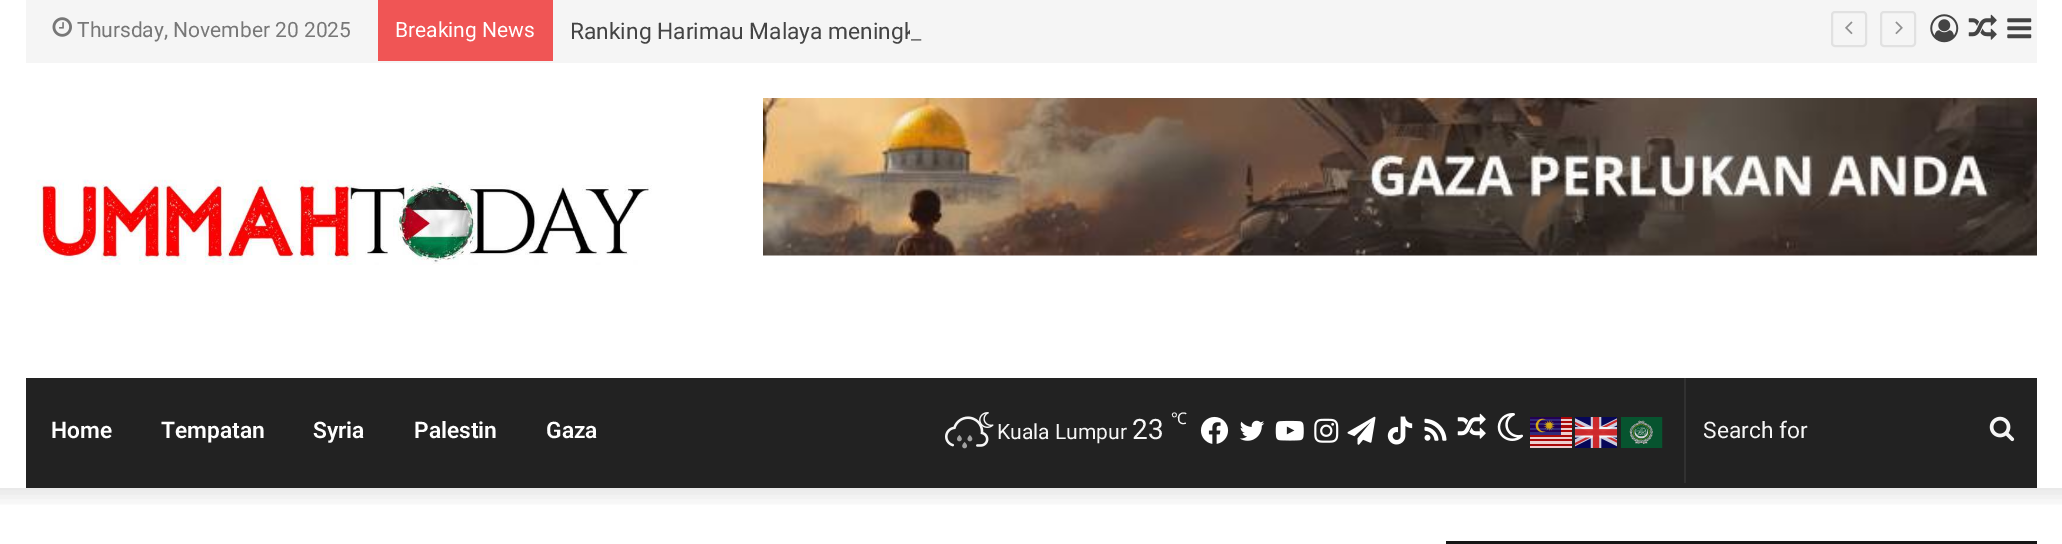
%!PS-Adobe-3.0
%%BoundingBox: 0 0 2062 544
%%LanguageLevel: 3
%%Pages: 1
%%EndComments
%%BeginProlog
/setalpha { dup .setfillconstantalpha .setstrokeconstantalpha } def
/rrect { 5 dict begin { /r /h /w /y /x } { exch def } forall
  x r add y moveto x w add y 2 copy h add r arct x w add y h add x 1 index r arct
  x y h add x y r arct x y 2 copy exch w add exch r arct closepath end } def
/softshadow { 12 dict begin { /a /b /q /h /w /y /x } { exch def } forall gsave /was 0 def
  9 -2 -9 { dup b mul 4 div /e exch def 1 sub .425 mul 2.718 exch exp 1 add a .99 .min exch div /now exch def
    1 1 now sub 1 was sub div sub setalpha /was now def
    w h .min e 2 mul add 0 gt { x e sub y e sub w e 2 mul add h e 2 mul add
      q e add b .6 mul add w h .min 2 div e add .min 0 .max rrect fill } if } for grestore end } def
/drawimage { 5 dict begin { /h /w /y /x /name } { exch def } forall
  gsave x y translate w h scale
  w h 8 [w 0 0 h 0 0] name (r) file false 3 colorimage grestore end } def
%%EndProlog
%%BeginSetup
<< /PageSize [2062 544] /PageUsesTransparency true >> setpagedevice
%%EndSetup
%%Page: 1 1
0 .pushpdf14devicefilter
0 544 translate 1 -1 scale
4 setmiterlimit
1 setgray
0 0 2062 544 rectfill
gsave
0 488 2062 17 rectclip
0 setgray
-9 -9 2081 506 0 9 0.1 softshadow
grestore
0.961 setgray
26 0 2011 63 rectfill
(images/1.raw) 52 17 20 20 drawimage
0.941 0.333 0.333 setrgbcolor
378 0 175 61 rectfill
0.882 setgray
2 setlinewidth
1832 12 34 34 3 rrect stroke
(images/2.raw) 1845 21 8 14 drawimage
1881 12 34 34 3 rrect stroke
(images/3.raw) 1895 21 8 14 drawimage
(images/4.raw) 1930 14 29 29 drawimage
(images/5.raw) 1968 14 29 26 drawimage
(images/6.raw) 2007 18 25 21 drawimage
(images/7.raw) 35 179 617 86 drawimage
(images/8.raw) 763 98 1274 158 drawimage
0.133 setgray
26 378 2011 110 rectfill
(images/9.raw) 979 412 15 16 drawimage
(images/11.raw) 979 422 3 4 drawimage
(images/10.raw) 945 416 44 31 drawimage
(images/12.raw) 957 435 5 7 drawimage
(images/13.raw) 967 435 6 7 drawimage
(images/14.raw) 962 442 5 7 drawimage
(images/15.raw) 1200 416 29 28 drawimage
(images/16.raw) 1239 420 26 21 drawimage
(images/17.raw) 1275 420 29 21 drawimage
(images/18.raw) 1314 418 25 25 drawimage
(images/19.raw) 1347 416 29 29 drawimage
(images/20.raw) 1387 416 26 29 drawimage
(images/21.raw) 1424 418 23 23 drawimage
(images/22.raw) 1457 413 29 26 drawimage
(images/23.raw) 1497 413 26 28 drawimage
(images/24.raw) 1530 417 42 31 drawimage
(images/25.raw) 1575 417 42 31 drawimage
(images/26.raw) 1621 417 42 31 drawimage
0.192 setgray
1684 378 2 105 rectfill
(images/27.raw) 1989 416 26 26 drawimage
0.086 setgray
1446 541 591 3 rectfill
/Roboto-Regular [21 0 0 -21 0 0] selectfont
0.467 setgray
77 37 moveto (Thursday, November 20 2025) show
1 setgray
395 37 moveto (Breaking News) show
/Roboto-Regular [22.75 0 0 -22.75 0 0] selectfont
0.267 setgray
570 39 moveto (Ranking Harimau Malaya meningk) show
0.961 setgray
910 27 6 12 rectfill
0.467 setgray
911 39 moveto (_) show
/Roboto-SemiBold [22.75 0 0 -22.75 0 0] selectfont
1 setgray
51 438 moveto (Home) show
161 438 moveto (Tempatan) show
313 438 moveto (Syria) show
414 438 moveto (Palestin) show
546 438 moveto (Gaza) show
/Roboto-Regular [21 0 0 -21 0 0] selectfont
0.965 setgray
997 439 moveto (Kuala Lumpur) show
/Roboto-Regular [28 0 0 -28 0 0] selectfont
1132 439 moveto (23) show
/NotoSans-Regular [16 0 0 -16 0 0] selectfont
1171 424 moveto (℃) show
/Roboto-Regular [22.75 0 0 -22.75 0 0] selectfont
1703 438 moveto (Search for) show
.poppdf14devicefilter showpage
%%EOF
